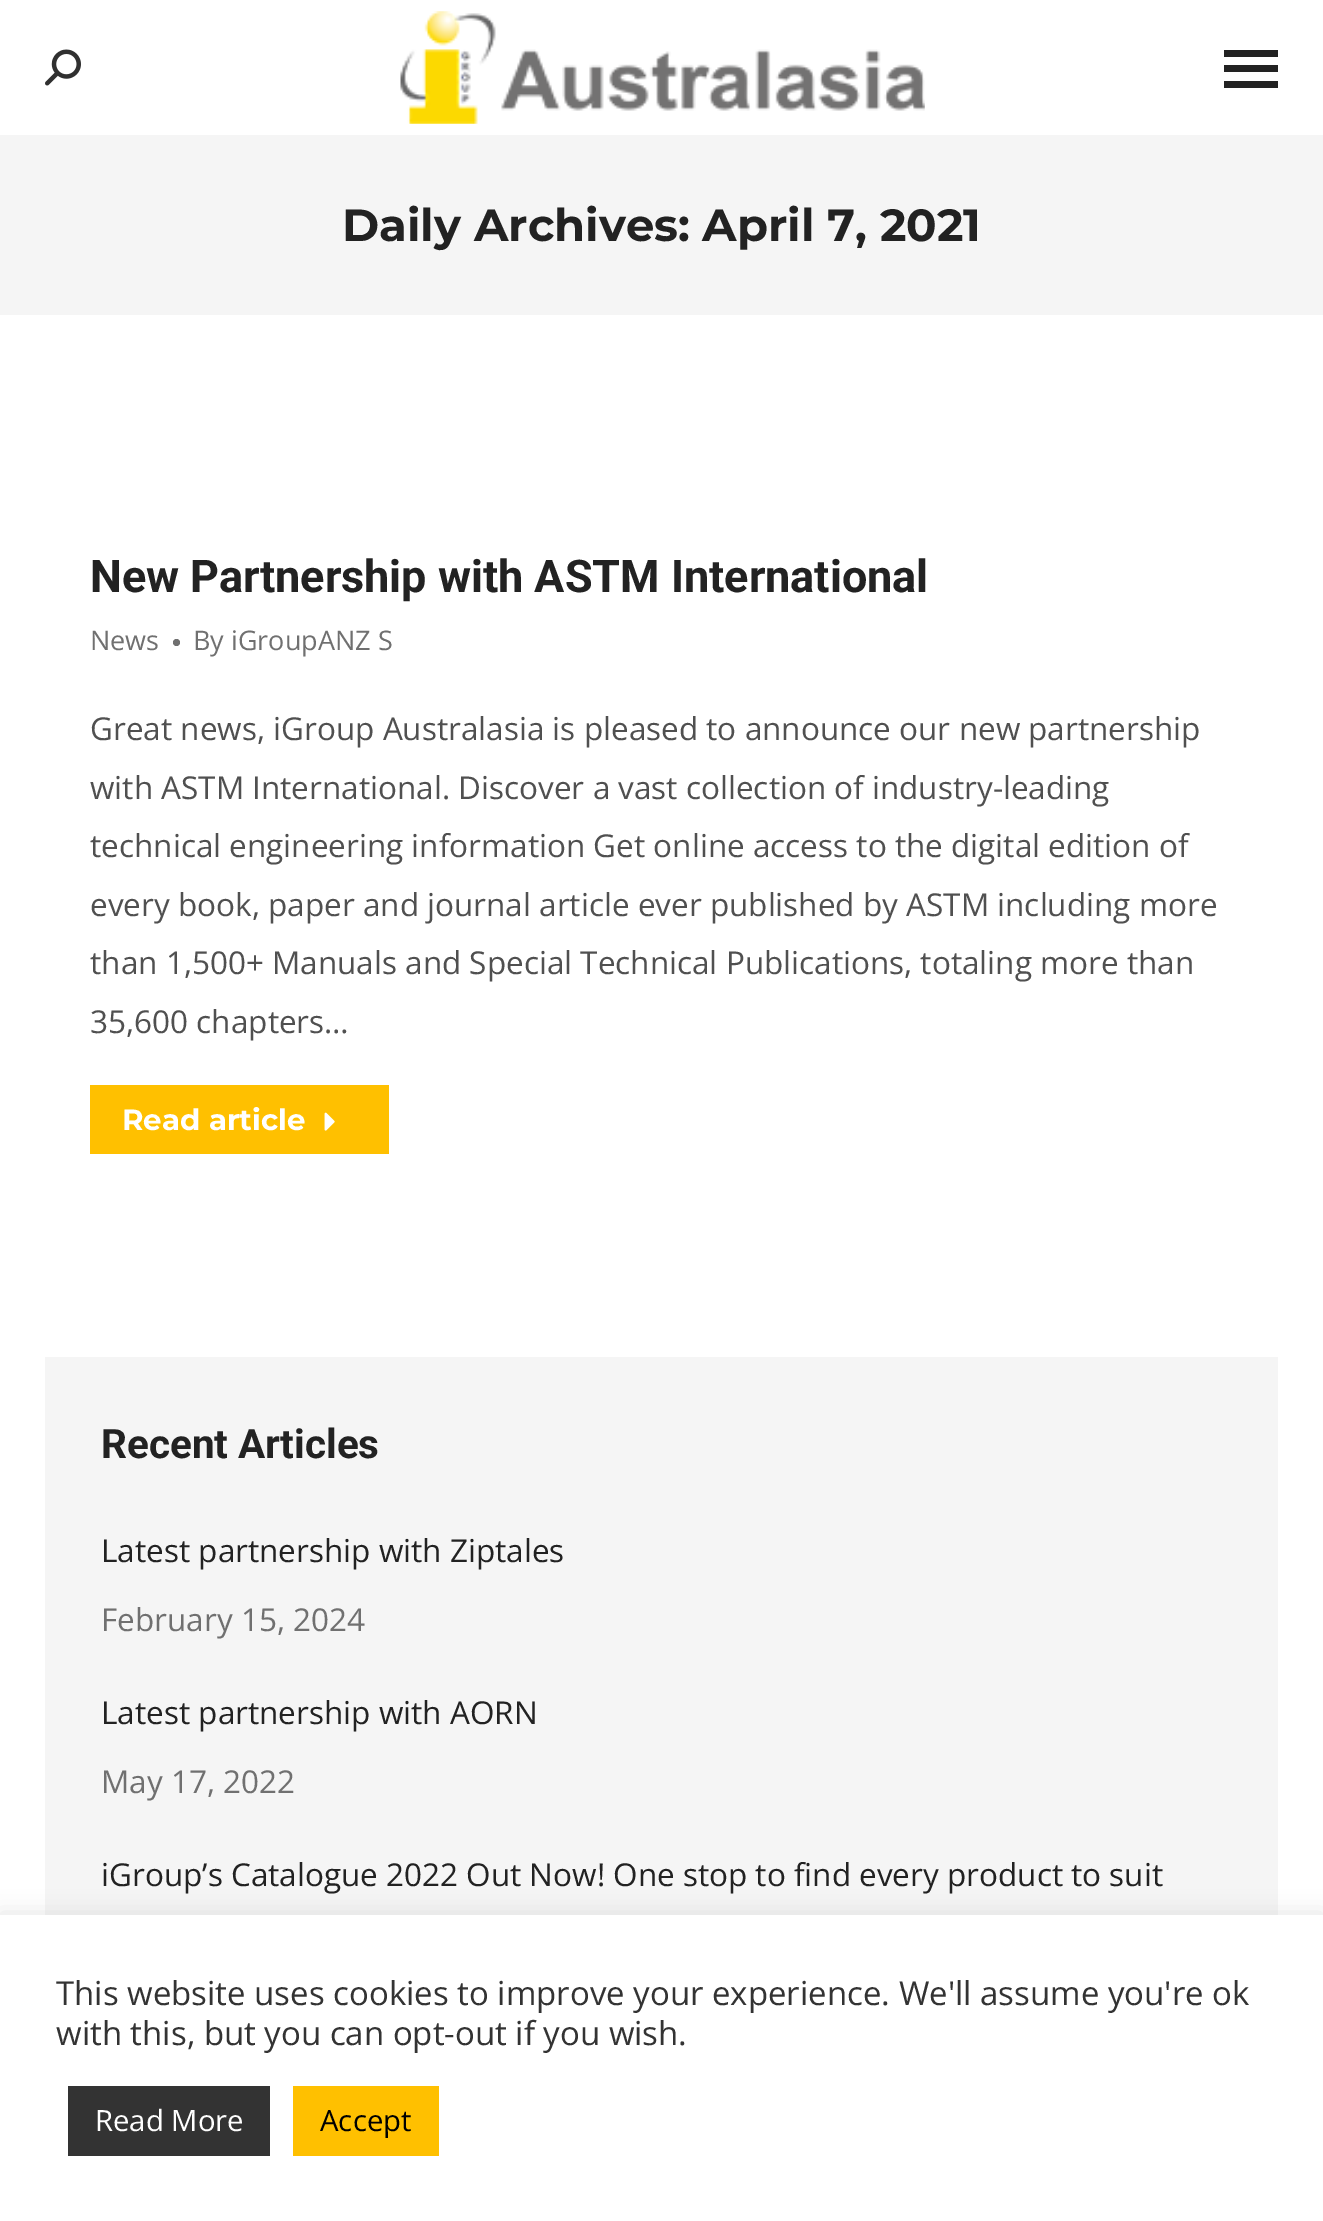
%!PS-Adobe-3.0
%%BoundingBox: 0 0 1323 2221
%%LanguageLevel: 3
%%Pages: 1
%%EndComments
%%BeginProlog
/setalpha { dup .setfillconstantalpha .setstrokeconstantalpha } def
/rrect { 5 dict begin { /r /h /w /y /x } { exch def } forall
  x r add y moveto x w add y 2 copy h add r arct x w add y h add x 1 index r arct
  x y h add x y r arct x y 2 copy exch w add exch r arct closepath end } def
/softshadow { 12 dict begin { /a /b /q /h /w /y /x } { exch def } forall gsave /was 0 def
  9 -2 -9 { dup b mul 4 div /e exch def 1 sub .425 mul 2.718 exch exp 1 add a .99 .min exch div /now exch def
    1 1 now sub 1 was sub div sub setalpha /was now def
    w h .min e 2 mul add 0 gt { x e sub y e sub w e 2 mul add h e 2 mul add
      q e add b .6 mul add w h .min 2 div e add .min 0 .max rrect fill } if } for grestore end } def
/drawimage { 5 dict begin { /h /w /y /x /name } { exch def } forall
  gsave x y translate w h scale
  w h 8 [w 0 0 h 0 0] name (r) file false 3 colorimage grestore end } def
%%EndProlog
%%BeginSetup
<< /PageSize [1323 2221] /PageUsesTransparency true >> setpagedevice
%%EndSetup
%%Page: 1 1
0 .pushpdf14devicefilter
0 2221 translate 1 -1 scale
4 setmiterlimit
1 setgray
0 0 1323 2221 rectfill
(images/1.raw) 45 49 36 37 drawimage
(images/2.raw) 400 11 525 113 drawimage
0.133 setgray
1224 50 54 7 rectfill
1224 65 54 7 rectfill
1224 81 54 7 rectfill
0.961 setgray
0 135 1323 180 rectfill
0.439 setgray
newpath 176.5 642.5 3.5 0 360 arc closepath fill
1 0.753 0 setrgbcolor
90 1085 299 69 rectfill
(images/3.raw) 324 1112 11 19 drawimage
0.04 setalpha
0 setgray
45 1357 1233 558 rectfill
1 setalpha
0.675 0.671 0.671 setrgbcolor
0 1913 1323 308 0 11 0.3 softshadow
1 setgray
0 1915 1323 306 rectfill
0.2 setgray
68 2086 202 70 rectfill
1 0.753 0 setrgbcolor
293 2086 146 70 rectfill
/Montserrat-Bold [45 0 0 -45 0 0] selectfont
0.133 setgray
342 241 moveto (Daily Archives: April 7, 2021) show
/Roboto-Bold [45 0 0 -45 0 0] selectfont
90 592 moveto (New Partnership with ASTM International) show
/OpenSans-Regular [27 0 0 -27 0 0] selectfont
0.439 setgray
90 650 moveto (News) show
193 650 moveto (By iGroupANZ S) show
/OpenSans-Regular [31.5 0 0 -31.5 0 0] selectfont
0.314 setgray
90 740 moveto (Great news, iGroup Australasia is pleased to announce our new partnership) show
90 799 moveto (with ASTM International. Discover a vast collection of industry-leading) show
90 857 moveto (technical engineering information Get online access to the digital edition of) show
90 916 moveto (every book, paper and journal article ever published by ASTM including more) show
90 974 moveto (than 1,500+ Manuals and Special Technical Publications, totaling more than) show
90 1033 moveto (35,600 chapters…) show
/Montserrat-Bold [29.25 0 0 -29.25 0 0] selectfont
1 setgray
122 1130 moveto (Read article) show
/Roboto-Bold [40.5 0 0 -40.5 0 0] selectfont
0.133 setgray
101 1458 moveto (Recent Articles) show
/OpenSans-Regular [31.5 0 0 -31.5 0 0] selectfont
101 1562 moveto (Latest partnership with Ziptales) show
0.439 setgray
101 1631 moveto (February 15, 2024) show
0.133 setgray
101 1724 moveto (Latest partnership with AORN) show
0.439 setgray
101 1793 moveto (May 17, 2022) show
0.133 setgray
101 1886 moveto (iGroup’s Catalogue 2022 Out Now! One stop to find every product to suit) show
/OpenSans-Regular [33 0 0 -33 0 0] selectfont
0.2 setgray
56 2005 moveto (This website uses cookies to improve your experience. We'll assume you're ok) show
56 2045 moveto (with this, but you can opt-out if you wish.) show
/OpenSans-Regular [29.25 0 0 -29.25 0 0] selectfont
1 setgray
95 2131 moveto (Read More) show
0 setgray
320 2131 moveto (Accept) show
.poppdf14devicefilter showpage
%%EOF
